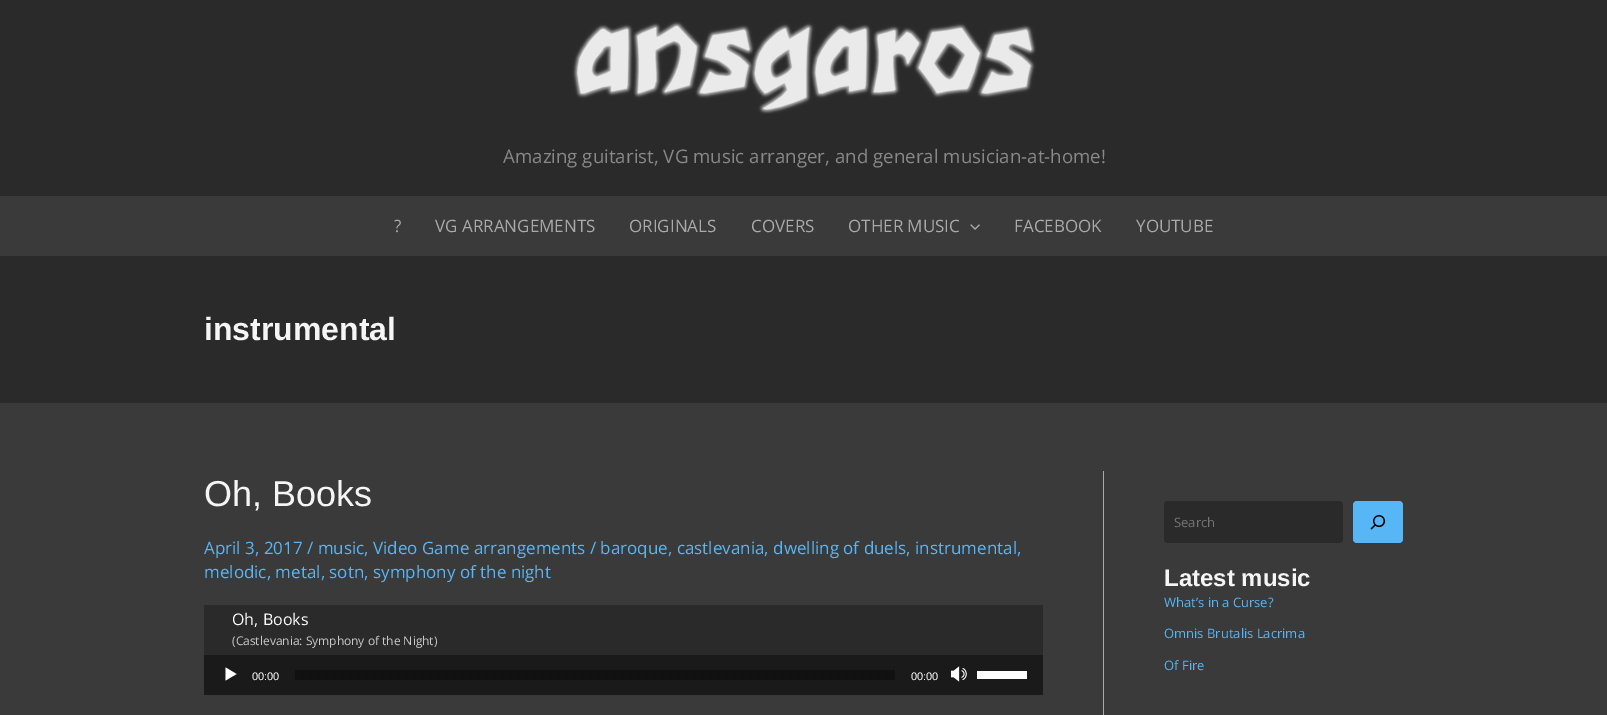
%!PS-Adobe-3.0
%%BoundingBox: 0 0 1607 715
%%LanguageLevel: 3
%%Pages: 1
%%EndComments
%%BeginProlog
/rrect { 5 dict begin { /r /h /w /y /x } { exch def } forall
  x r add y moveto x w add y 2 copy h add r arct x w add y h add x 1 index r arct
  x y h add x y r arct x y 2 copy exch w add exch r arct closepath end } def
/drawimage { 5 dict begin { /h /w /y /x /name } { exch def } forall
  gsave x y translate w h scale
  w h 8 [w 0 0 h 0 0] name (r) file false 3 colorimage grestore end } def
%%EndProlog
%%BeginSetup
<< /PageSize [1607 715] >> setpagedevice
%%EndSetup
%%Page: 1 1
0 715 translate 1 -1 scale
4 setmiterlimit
0.227 setgray
0 0 1607 715 rectfill
0.165 setgray
0 0 1607 196 rectfill
(images/1.raw) 572 21 464 93 drawimage
(images/2.raw) 970 224 10 6 drawimage
0 256 1607 147 rectfill
0.667 setgray
1103 471 1 244 rectfill
0.165 setgray
204 605 839 50 rectfill
0.102 setgray
204 655 839 40 rectfill
1 setgray
newpath 225.5 667.5 moveto 236.5 674 lineto 225.5 680.5 lineto closepath fill
(images/3.raw) 295 670 600 10 drawimage
(images/4.raw) 951 666 16 16 drawimage
977 671 50 8 rectfill
0.165 setgray
1164 501 179 42 4 rrect fill
0.341 0.714 0.965 setrgbcolor
1353 501 50 42 4 rrect fill
(images/5.raw) 1370 515 16 15 drawimage
/OpenSans-Regular [18.7 0 0 -18.7 0 0] selectfont
0.533 setgray
503 163 moveto (Amazing guitarist, VG music arranger, and general musician-at-home!) show
/OpenSans-Regular [17 0 0 -17 0 0] selectfont
0.667 setgray
394 232 moveto (?) show
435 232 moveto (VG ARRANGEMENTS) show
629 232 moveto (ORIGINALS) show
751 232 moveto (COVERS) show
848 232 moveto (OTHER MUSIC) show
1014 232 moveto (FACEBOOK) show
1136 232 moveto (YOUTUBE) show
/LiberationSans-Bold [32 0 0 -32 0 0] selectfont
0.961 setgray
204 340 moveto (instrumental) show
/LiberationSans-Regular [36 0 0 -36 0 0] selectfont
204 506 moveto (Oh, Books) show
/OpenSans-Regular [17 0 0 -17 0 0] selectfont
0.341 0.714 0.965 setrgbcolor
204 554 moveto (April 3, 2017 / music, Video Game arrangements / baroque, castlevania, dwelling of duels, instrumental,) show
204 578 moveto (melodic, metal, sotn, symphony of the night) show
/OpenSans-Regular [16 0 0 -16 0 0] selectfont
1 setgray
232 625 moveto (Oh, Books) show
/OpenSans-Regular [12 0 0 -12 0 0] selectfont
0.792 setgray
232 645 moveto (\(Castlevania: Symphony of the Night\)) show
/LiberationSans-Regular [11 0 0 -11 0 0] selectfont
1 setgray
252 680 moveto (00:00) show
911 680 moveto (00:00) show
/OpenSans-Regular [13 0 0 -13 0 0] selectfont
0.459 setgray
1174 527 moveto (Search) show
/LiberationSans-Bold [24 0 0 -24 0 0] selectfont
0.961 setgray
1164 586 moveto (Latest music) show
/OpenSans-Regular [13 0 0 -13 0 0] selectfont
0.341 0.714 0.965 setrgbcolor
1164 607 moveto (What’s in a Curse?) show
1164 638 moveto (Omnis Brutalis Lacrima) show
1164 670 moveto (Of Fire) show
showpage
%%EOF
